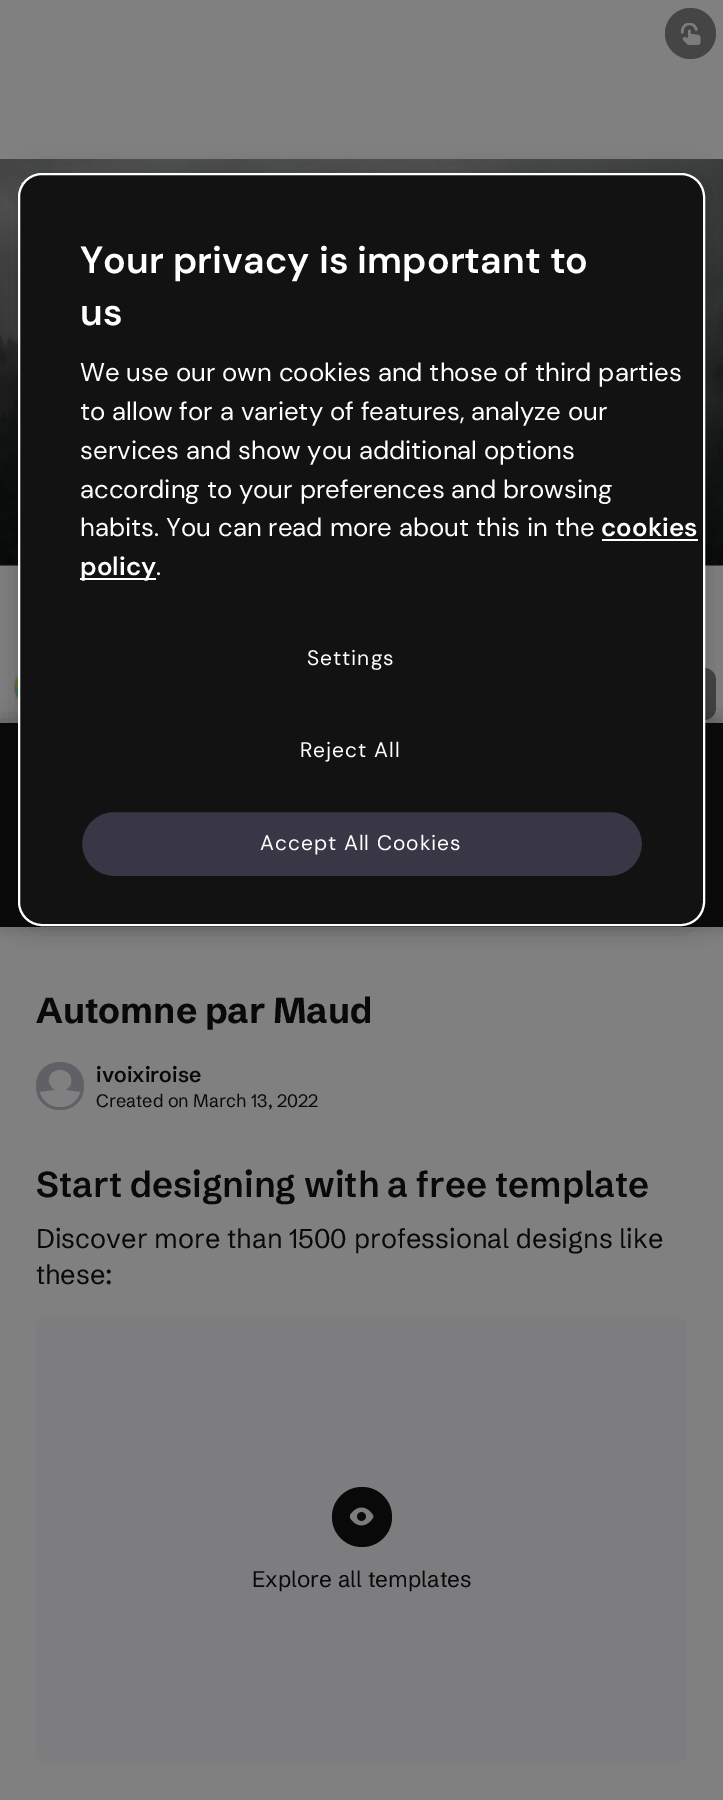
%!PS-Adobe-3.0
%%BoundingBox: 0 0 723 1800
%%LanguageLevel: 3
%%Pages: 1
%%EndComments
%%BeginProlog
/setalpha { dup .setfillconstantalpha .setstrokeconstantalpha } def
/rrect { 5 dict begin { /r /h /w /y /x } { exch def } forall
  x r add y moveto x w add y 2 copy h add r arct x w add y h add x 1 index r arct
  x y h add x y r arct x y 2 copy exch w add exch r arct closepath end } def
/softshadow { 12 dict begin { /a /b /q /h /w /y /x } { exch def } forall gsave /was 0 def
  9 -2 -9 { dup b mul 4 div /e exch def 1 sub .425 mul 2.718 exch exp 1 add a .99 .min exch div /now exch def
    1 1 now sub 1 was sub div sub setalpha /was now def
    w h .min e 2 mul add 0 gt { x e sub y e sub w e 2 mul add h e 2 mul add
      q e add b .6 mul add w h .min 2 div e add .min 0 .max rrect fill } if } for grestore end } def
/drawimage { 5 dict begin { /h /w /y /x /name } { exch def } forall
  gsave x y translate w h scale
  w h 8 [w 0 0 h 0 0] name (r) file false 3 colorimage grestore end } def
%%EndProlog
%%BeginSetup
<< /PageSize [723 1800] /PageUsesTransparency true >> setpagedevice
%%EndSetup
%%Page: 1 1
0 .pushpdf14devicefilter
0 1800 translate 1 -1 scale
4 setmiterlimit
0.502 setgray
0 0 723 1800 rectfill
0.271 setgray
599 668 117 52 12 rrect fill
(images/2.raw) 0 159 723 407 drawimage
0.035 setgray
21 182 137 36 2 1 0.2 softshadow
0.502 setgray
21 182 137 34 2 rrect fill
(images/3.raw) 12 671 6 33 drawimage
0.035 setgray
0 720 723 204 0 10 0.3 softshadow
0 723 723 204 rectfill
0 setgray
18 173 687 753 24 13.5 0.2 softshadow
0.071 setgray
19 174 685 751 23 rrect gsave fill grestore
1 setgray
2 setlinewidth
stroke
602 539 96 2 rectfill
80 578 76 2 rectfill
0.224 0.212 0.271 setrgbcolor
81 811 562 66 33 rrect gsave fill grestore
0.071 setgray
stroke
0.271 setgray
newpath 690.5 33.5 25.5 0 360 arc closepath fill
(images/1.raw) 680 23 21 22 drawimage
0.376 0.38 0.4 setrgbcolor
newpath 84 1086 moveto 84 1118 36 1118 36 1086 curveto 36 1054 84 1054 84 1086 curveto fill
0.502 setgray
newpath 80 1092 moveto 65 1090 lineto 68 1089 70 1086 71 1083 curveto 74 1067 48 1065 49 1082 curveto 50 1085 52 1088 55 1090 curveto 40 1092 lineto 45 1112 75 1112 80 1092 curveto fill
0.49 0.486 0.494 setrgbcolor
36 1317 651 447 12 rrect fill
0.035 setgray
newpath 362 1517 30 0 360 arc closepath fill
(images/4.raw) 350 1507 24 19 drawimage
/DMSans-SemiBold [37.75 0 0 -37.75 0 0] selectfont
1 setgray
80 273 moveto (Your privacy is important to) show
80 325 moveto (us) show
/DMSans-Regular [25.8 0 0 -25.8 0 0] selectfont
80 381 moveto (We use our own cookies and those of third parties) show
80 420 moveto (to allow for a variety of features, analyze our) show
80 459 moveto (services and show you additional options) show
80 498 moveto (according to your preferences and browsing) show
80 536 moveto (habits. You can read more about this in the) show
/DMSans-SemiBold [25.8 0 0 -25.8 0 0] selectfont
601 536 moveto (cookies) show
80 575 moveto (policy) show
/DMSans-Regular [25.8 0 0 -25.8 0 0] selectfont
156 575 moveto (.) show
/DMSans-Regular [21 0 0 -21 0 0] selectfont
307 665 moveto 1 0 (Settings) ashow
300 757 moveto 1 0 (Reject All) ashow
260 850 moveto 1 0 (Accept All Cookies) ashow
/SchibstedGrotesk-Bold [36 0 0 -36 0 0] selectfont
0.035 setgray
36 1023 moveto (Automne par Maud) show
/SchibstedGrotesk-SemiBold [21 0 0 -21 0 0] selectfont
96 1082 moveto (ivoixiroise) show
/SchibstedGrotesk-Regular [18 0 0 -18 0 0] selectfont
96 1107 moveto (Created on March 13, 2022) show
/SchibstedGrotesk-SemiBold [36 0 0 -36 0 0] selectfont
36 1197 moveto (Start designing with a free template) show
/SchibstedGrotesk-Regular [27 0 0 -27 0 0] selectfont
36 1248 moveto (Discover more than 1500 professional designs like) show
36 1284 moveto (these:) show
/SchibstedGrotesk-Regular [22.5 0 0 -22.5 0 0] selectfont
252 1587 moveto (Explore all templates) show
.poppdf14devicefilter showpage
%%EOF
